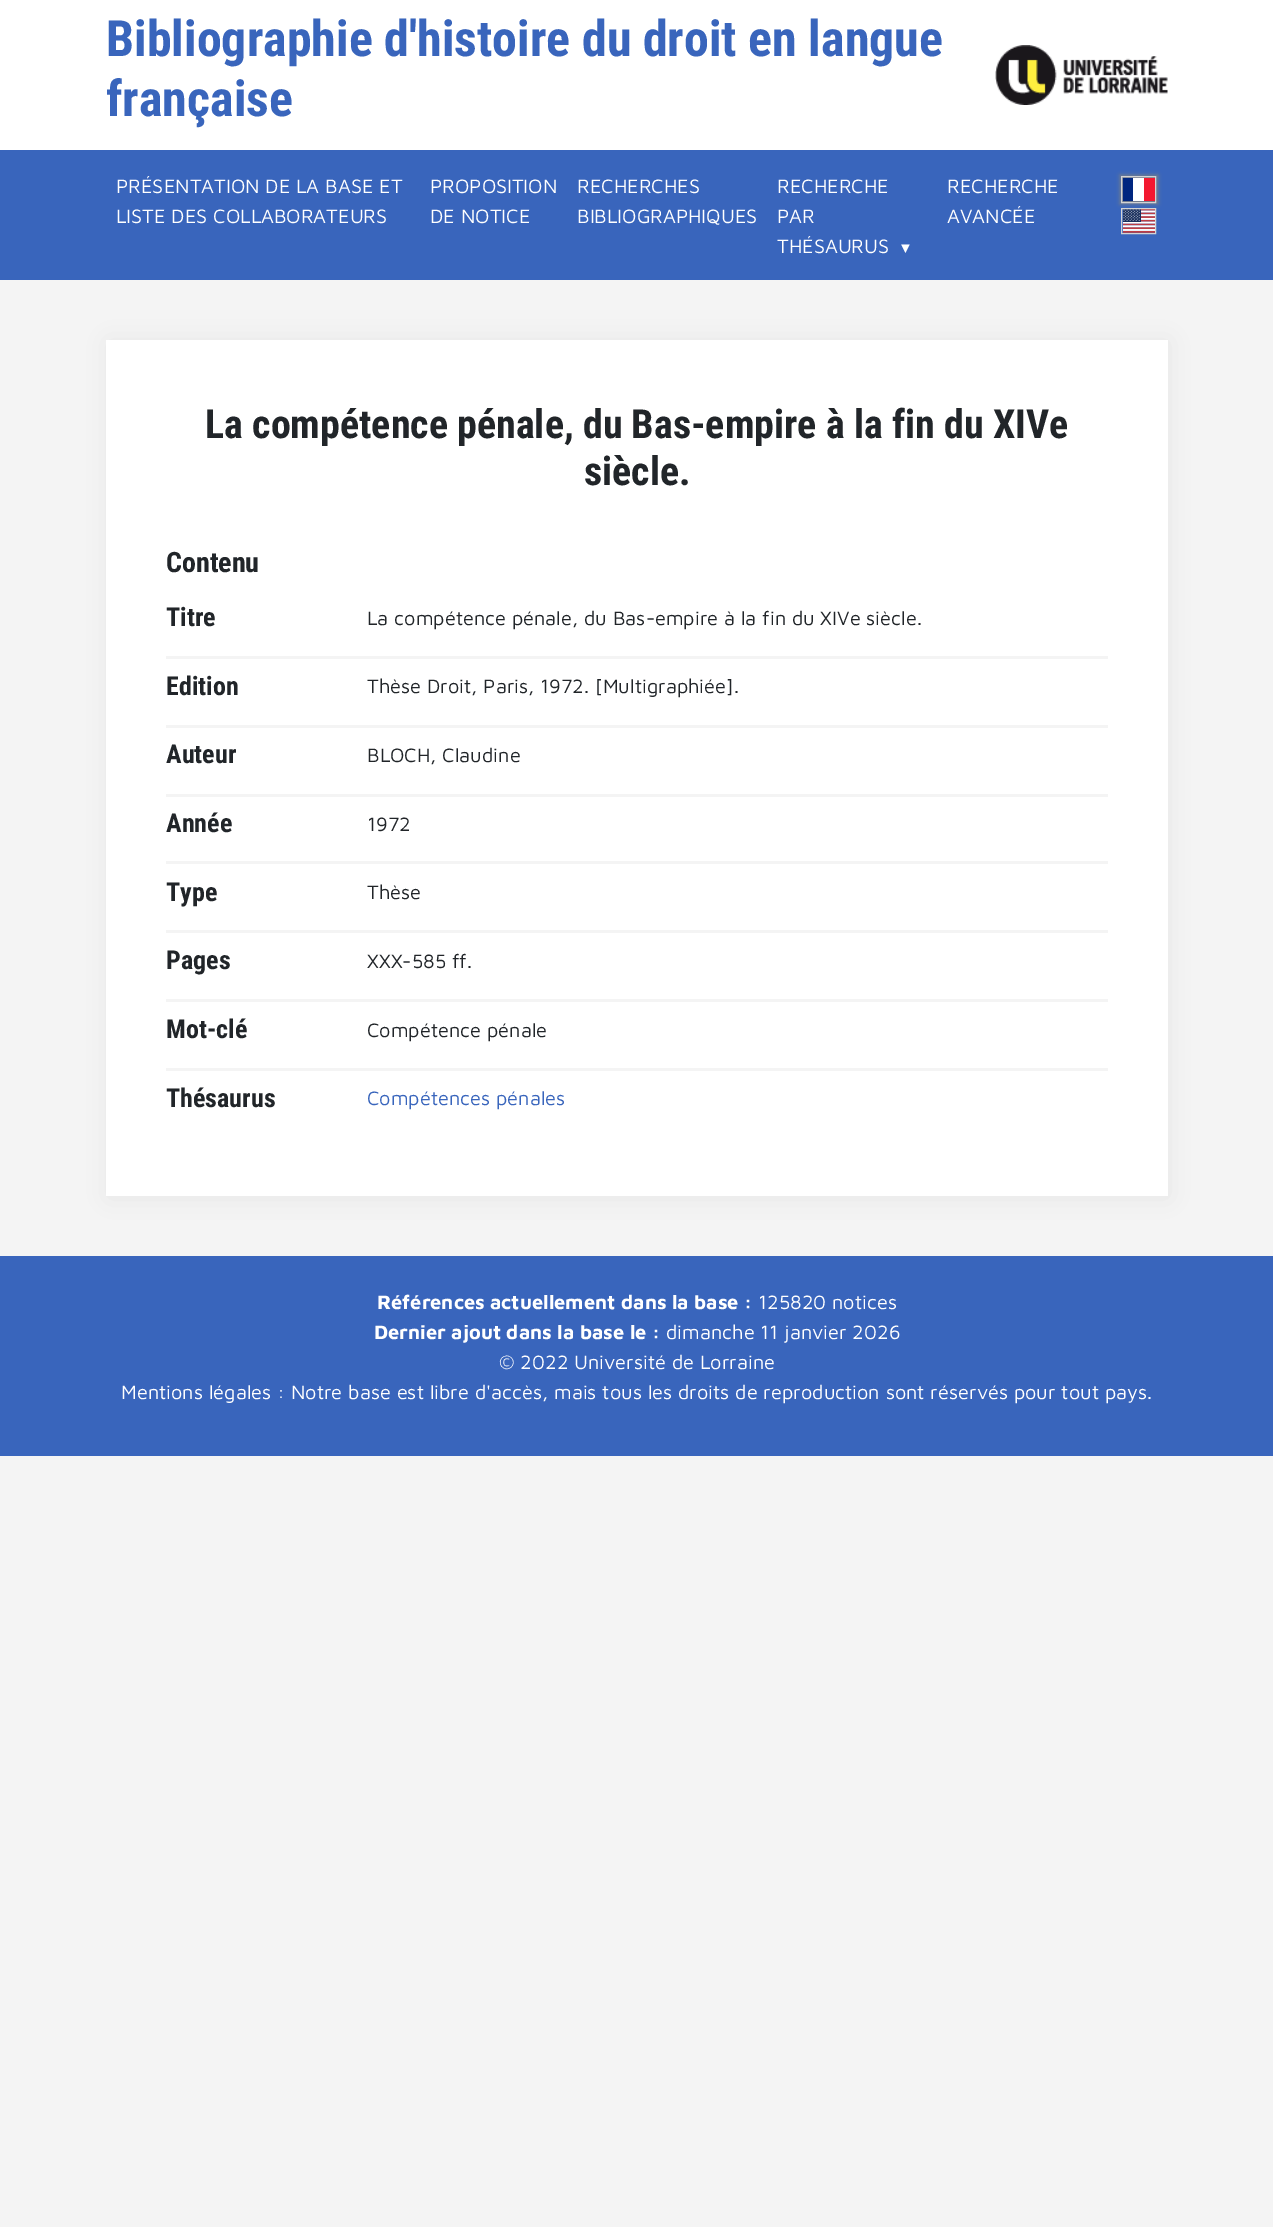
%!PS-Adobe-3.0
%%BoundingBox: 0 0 1273 2227
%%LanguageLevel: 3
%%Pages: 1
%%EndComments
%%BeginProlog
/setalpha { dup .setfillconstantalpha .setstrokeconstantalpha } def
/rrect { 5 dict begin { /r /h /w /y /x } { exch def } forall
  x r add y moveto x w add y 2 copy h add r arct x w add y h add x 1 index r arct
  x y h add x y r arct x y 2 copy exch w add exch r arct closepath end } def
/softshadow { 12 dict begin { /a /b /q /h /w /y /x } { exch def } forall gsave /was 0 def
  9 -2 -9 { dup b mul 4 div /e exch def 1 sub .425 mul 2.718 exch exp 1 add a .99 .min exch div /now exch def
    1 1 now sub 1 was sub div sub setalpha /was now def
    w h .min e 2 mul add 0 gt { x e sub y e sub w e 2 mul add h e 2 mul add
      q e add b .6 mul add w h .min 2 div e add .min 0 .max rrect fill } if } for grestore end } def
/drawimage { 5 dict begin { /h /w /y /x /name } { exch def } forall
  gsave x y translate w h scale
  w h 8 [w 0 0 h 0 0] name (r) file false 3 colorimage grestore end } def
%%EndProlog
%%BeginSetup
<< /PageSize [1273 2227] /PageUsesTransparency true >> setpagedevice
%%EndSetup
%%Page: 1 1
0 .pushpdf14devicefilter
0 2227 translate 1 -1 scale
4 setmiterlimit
0.957 setgray
0 0 1273 2227 rectfill
1 setgray
0 0 1273 150 rectfill
(images/1.raw) 995 45 173 60 drawimage
0.224 0.396 0.737 setrgbcolor
0 150 1273 130 rectfill
0.502 setgray
1120 175 38 29 0 2 0.9 softshadow
1 setgray
1133 178 11 23 rectfill
0 0.149 0.498 setrgbcolor
1123 178 10 23 rectfill
0.953 0.094 0.188 setrgbcolor
1144 178 11 23 rectfill
0.827 setgray
1121.5 176.5 34 26 rectstroke
(images/2.raw) 1123 209 32 24 drawimage
1121.5 208.5 34 25 rectstroke
0.635 setgray
108 341 1061 857 0 12.5 0.17 softshadow
1 setgray
106 340 1062 856 rectfill
0.957 setgray
166 656 942 3 rectfill
166 725 942 3 rectfill
166 794 942 3 rectfill
166 861 942 3 rectfill
166 930 942 3 rectfill
166 999 942 3 rectfill
166 1068 942 3 rectfill
0.224 0.396 0.737 setrgbcolor
0 1256 1273 200 rectfill
/RobotoCondensed-Bold [50 0 0 -50 0 0] selectfont
106 56 moveto (Bibliographie d'histoire du droit en langue) show
106 116 moveto (française) show
/MavenPro-Regular [20 0 0 -20 0 0] selectfont
1 setgray
116 193 moveto (PRÉSENTATION DE LA BASE ET) show
116 223 moveto (LISTE DES COLLABORATEURS) show
430 193 moveto (PROPOSITION) show
430 223 moveto (DE NOTICE) show
577 193 moveto (RECHERCHES) show
577 223 moveto (BIBLIOGRAPHIQUES) show
777 193 moveto (RECHERCHE) show
777 223 moveto (PAR) show
777 253 moveto (THÉSAURUS) show
/LiberationSerif-Bold [15 0 0 -15 0 0] selectfont
898 253 moveto (▼) show
/MavenPro-Regular [20 0 0 -20 0 0] selectfont
947 193 moveto (RECHERCHE) show
947 223 moveto (AVANCÉE) show
/RobotoCondensed-Bold [40 0 0 -40 0 0] selectfont
0.129 0.145 0.161 setrgbcolor
205 438 moveto (La compétence pénale, du Bas-empire à la fin du XIVe) show
584 485 moveto (siècle.) show
/RobotoCondensed-Bold [28 0 0 -28 0 0] selectfont
166 572 moveto (Contenu) show
/RobotoCondensed-Bold [26 0 0 -26 0 0] selectfont
166 626 moveto (Titre) show
/MavenPro-Regular [20 0 0 -20 0 0] selectfont
367 625 moveto (La compétence pénale, du Bas-empire à la fin du XIVe siècle.) show
/RobotoCondensed-Bold [26 0 0 -26 0 0] selectfont
166 695 moveto (Edition) show
/MavenPro-Regular [20 0 0 -20 0 0] selectfont
367 693 moveto (Thèse Droit, Paris, 1972. [Multigraphiée].) show
/RobotoCondensed-Bold [26 0 0 -26 0 0] selectfont
166 763 moveto (Auteur) show
/MavenPro-Regular [20 0 0 -20 0 0] selectfont
367 762 moveto (BLOCH, Claudine) show
/RobotoCondensed-Bold [26 0 0 -26 0 0] selectfont
166 832 moveto (Année) show
/MavenPro-Regular [20 0 0 -20 0 0] selectfont
367 831 moveto (1972) show
/RobotoCondensed-Bold [26 0 0 -26 0 0] selectfont
166 901 moveto (Type) show
/MavenPro-Regular [20 0 0 -20 0 0] selectfont
367 899 moveto (Thèse) show
/RobotoCondensed-Bold [26 0 0 -26 0 0] selectfont
166 969 moveto (Pages) show
/MavenPro-Regular [20 0 0 -20 0 0] selectfont
367 968 moveto (XXX-585 ff.) show
/RobotoCondensed-Bold [26 0 0 -26 0 0] selectfont
166 1038 moveto (Mot-clé) show
/MavenPro-Regular [20 0 0 -20 0 0] selectfont
367 1037 moveto (Compétence pénale) show
/RobotoCondensed-Bold [26 0 0 -26 0 0] selectfont
166 1107 moveto (Thésaurus) show
/MavenPro-Regular [20 0 0 -20 0 0] selectfont
0.224 0.396 0.737 setrgbcolor
367 1105 moveto (Compétences pénales) show
/MavenPro-Bold [20 0 0 -20 0 0] selectfont
1 setgray
377 1309 moveto (Références actuellement dans la base :) show
/MavenPro-Regular [20 0 0 -20 0 0] selectfont
758 1309 moveto (125820 notices) show
/MavenPro-Bold [20 0 0 -20 0 0] selectfont
374 1339 moveto (Dernier ajout dans la base le :) show
/MavenPro-Regular [20 0 0 -20 0 0] selectfont
666 1339 moveto (dimanche 11 janvier 2026) show
499 1369 moveto (© 2022 Université de Lorraine) show
121 1399 moveto (Mentions légales : Notre base est libre d'accès, mais tous les droits de reproduction sont réservés pour tout pays.) show
.poppdf14devicefilter showpage
%%EOF
